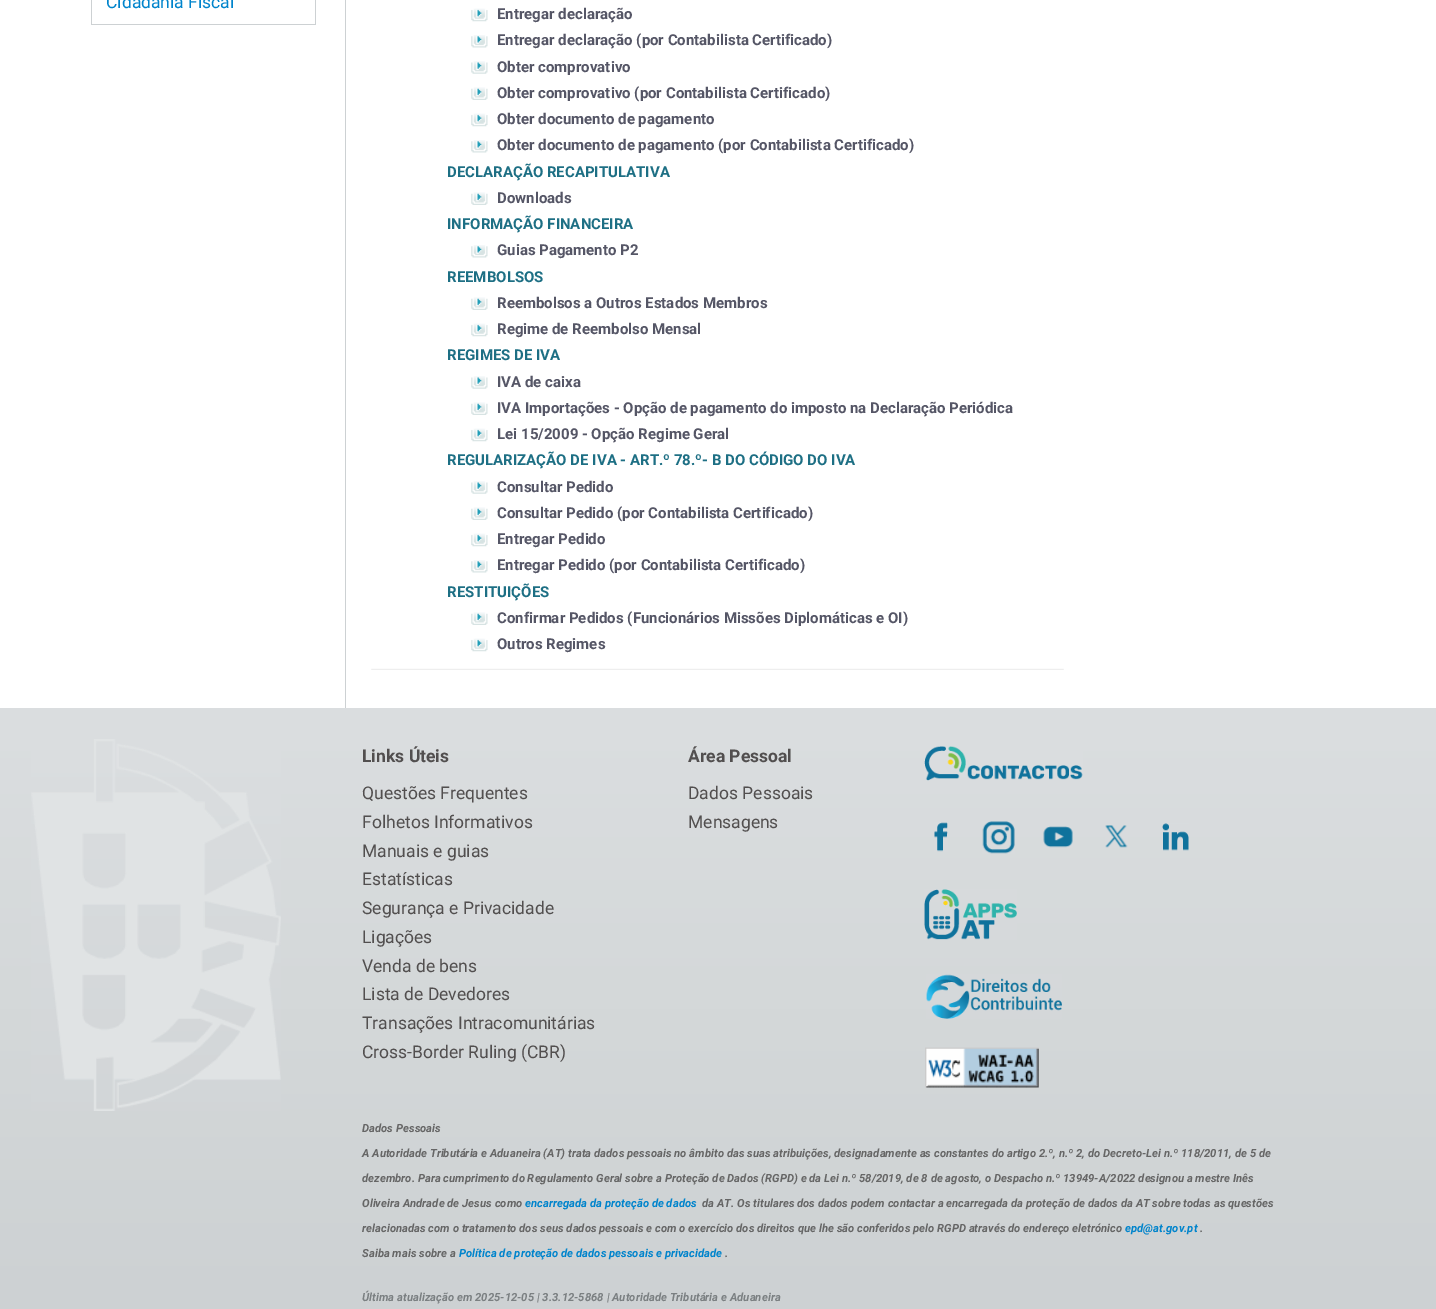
%!PS-Adobe-3.0
%%BoundingBox: 0 0 1436 1309
%%LanguageLevel: 3
%%Pages: 1
%%EndComments
%%BeginProlog
/drawimage { 5 dict begin { /h /w /y /x /name } { exch def } forall
  gsave x y translate w h scale
  w h 8 [w 0 0 h 0 0] name (r) file false 3 colorimage grestore end } def
%%EndProlog
%%BeginSetup
<< /PageSize [1436 1309] >> setpagedevice
%%EndSetup
%%Page: 1 1
0 1309 translate 1 -1 scale
4 setmiterlimit
1 setgray
0 0 1436 1309 rectfill
0.804 0.82 0.827 setrgbcolor
315 0 1 25 rectfill
91 24 225 1 rectfill
91 0 1 25 rectfill
345 0 1 708 rectfill
(images/1.raw) 471 8 17 14 drawimage
(images/2.raw) 471 35 17 13 drawimage
(images/3.raw) 471 61 17 13 drawimage
(images/4.raw) 471 87 17 13 drawimage
(images/1.raw) 471 113 17 14 drawimage
(images/2.raw) 471 140 17 13 drawimage
(images/4.raw) 471 192 17 13 drawimage
(images/2.raw) 471 245 17 13 drawimage
(images/4.raw) 471 297 17 13 drawimage
(images/1.raw) 471 323 17 14 drawimage
(images/3.raw) 471 376 17 13 drawimage
(images/4.raw) 471 402 17 13 drawimage
(images/1.raw) 471 428 17 14 drawimage
(images/3.raw) 471 481 17 13 drawimage
(images/4.raw) 471 507 17 13 drawimage
(images/1.raw) 471 533 17 14 drawimage
(images/2.raw) 471 560 17 13 drawimage
(images/4.raw) 471 612 17 13 drawimage
(images/1.raw) 471 638 17 14 drawimage
(images/5.raw) 371 668 693 2 drawimage
gsave newpath 0 708 moveto 1436 708 lineto 1436 1309 lineto 0 1309 lineto closepath clip newpath
<< /ShadingType 2 /ColorSpace /DeviceRGB /Coords [718 708 718 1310] /Extend [true true] /Function << /FunctionType 2 /Domain [0 1] /C0 [0.859 0.871 0.878] /C1 [0.804 0.82 0.827] /N 1 >> >> shfill grestore
(images/6.raw) 31 739 250 372 drawimage
(images/7.raw) 924 746 159 35 drawimage
(images/8.raw) 934 822 14 30 drawimage
(images/9.raw) 982 821 33 33 drawimage
(images/10.raw) 1043 826 30 22 drawimage
(images/11.raw) 1105 825 23 23 drawimage
(images/12.raw) 1162 823 27 28 drawimage
(images/13.raw) 924 889 93 51 drawimage
(images/14.raw) 926 974 136 45 drawimage
(images/15.raw) 925 1047 114 41 drawimage
/Roboto-Regular [17.5 0 0 -17.5 0 0] selectfont
0 0.518 0.8 setrgbcolor
106 8 moveto (Cidadania Fiscal) show
/Roboto-Bold [15 0 0 -15 0 0] selectfont
0.333 0.337 0.4 setrgbcolor
497 19 moveto (Entregar declaração) show
497 45 moveto (Entregar declaração \(por Contabilista Certificado\)) show
497 72 moveto (Obter comprovativo) show
497 98 moveto (Obter comprovativo \(por Contabilista Certificado\)) show
497 124 moveto (Obter documento de pagamento) show
497 150 moveto (Obter documento de pagamento \(por Contabilista Certificado\)) show
0.114 0.435 0.518 setrgbcolor
447 177 moveto (DECLARAÇÃO RECAPITULATIVA) show
0.333 0.337 0.4 setrgbcolor
497 203 moveto (Downloads) show
0.114 0.435 0.518 setrgbcolor
447 229 moveto (INFORMAÇÃO FINANCEIRA) show
0.333 0.337 0.4 setrgbcolor
497 255 moveto (Guias Pagamento P2) show
0.114 0.435 0.518 setrgbcolor
447 282 moveto (REEMBOLSOS) show
0.333 0.337 0.4 setrgbcolor
497 308 moveto (Reembolsos a Outros Estados Membros) show
497 334 moveto (Regime de Reembolso Mensal) show
0.114 0.435 0.518 setrgbcolor
447 360 moveto (REGIMES DE IVA) show
0.333 0.337 0.4 setrgbcolor
497 387 moveto (IVA de caixa) show
497 413 moveto (IVA Importações - Opção de pagamento do imposto na Declaração Periódica) show
497 439 moveto (Lei 15/2009 - Opção Regime Geral) show
0.114 0.435 0.518 setrgbcolor
447 465 moveto (REGULARIZAÇÃO DE IVA - ART.º 78.º- B DO CÓDIGO DO IVA) show
0.333 0.337 0.4 setrgbcolor
497 492 moveto (Consultar Pedido) show
497 518 moveto (Consultar Pedido \(por Contabilista Certificado\)) show
497 544 moveto (Entregar Pedido) show
497 570 moveto (Entregar Pedido \(por Contabilista Certificado\)) show
0.114 0.435 0.518 setrgbcolor
447 597 moveto (RESTITUIÇÕES) show
0.333 0.337 0.4 setrgbcolor
497 623 moveto (Confirmar Pedidos \(Funcionários Missões Diplomáticas e OI\)) show
497 649 moveto (Outros Regimes) show
/Roboto-Bold [17.5 0 0 -17.5 0 0] selectfont
0.322 0.31 0.31 setrgbcolor
362 762 moveto (Links Úteis) show
/Roboto-Regular [17.5 0 0 -17.5 0 0] selectfont
362 799 moveto (Questões Frequentes) show
362 828 moveto (Folhetos Informativos) show
362 857 moveto (Manuais e guias) show
362 885 moveto (Estatísticas) show
362 914 moveto (Segurança e Privacidade) show
362 943 moveto (Ligações) show
362 972 moveto (Venda de bens) show
362 1000 moveto (Lista de Devedores) show
362 1029 moveto (Transações Intracomunitárias) show
362 1058 moveto (Cross-Border Ruling \(CBR\)) show
/Roboto-Bold [17.5 0 0 -17.5 0 0] selectfont
688 762 moveto (Área Pessoal) show
/Roboto-Regular [17.5 0 0 -17.5 0 0] selectfont
688 799 moveto (Dados Pessoais) show
688 828 moveto (Mensagens) show
/Roboto-BoldItalic [11.25 0 0 -11.25 0 0] selectfont
0.4 setgray
362 1132 moveto (Dados Pessoais) show
362 1157 moveto (A Autoridade Tributária e Aduaneira \(AT\) trata dados pessoais no âmbito das suas atribuições, designadamente as constantes do artigo 2.º, n.º 2, do Decreto-Lei n.º 118/2011, de 5 de) show
362 1182 moveto (dezembro. Para cumprimento do Regulamento Geral sobre a Proteção de Dados \(RGPD\) e da Lei n.º 58/2019, de 8 de agosto, o Despacho n.º 13949-A/2022 designou a mestre Inês) show
362 1207 moveto (Oliveira Andrade de Jesus como) show
0 0.518 0.8 setrgbcolor
525 1207 moveto (encarregada da proteção de dados) show
0.4 setgray
702 1207 moveto (da AT. Os titulares dos dados podem contactar a encarregada da proteção de dados da AT sobre todas as questões) show
362 1232 moveto (relacionadas com o tratamento dos seus dados pessoais e com o exercício dos direitos que lhe são conferidos pelo RGPD através do endereço eletrónico) show
0 0.518 0.8 setrgbcolor
1125 1232 moveto (epd@at.gov.pt) show
0.4 setgray
1200 1232 moveto (.) show
362 1257 moveto (Saiba mais sobre a) show
0 0.518 0.8 setrgbcolor
459 1257 moveto (Política de proteção de dados pessoais e privacidade) show
0.4 setgray
725 1257 moveto (.) show
0.482 0.502 0.51 setrgbcolor
362 1301 moveto (Última atualização em 2025-12-05 | 3.3.12-5868 | Autoridade Tributária e Aduaneira) show
showpage
%%EOF
